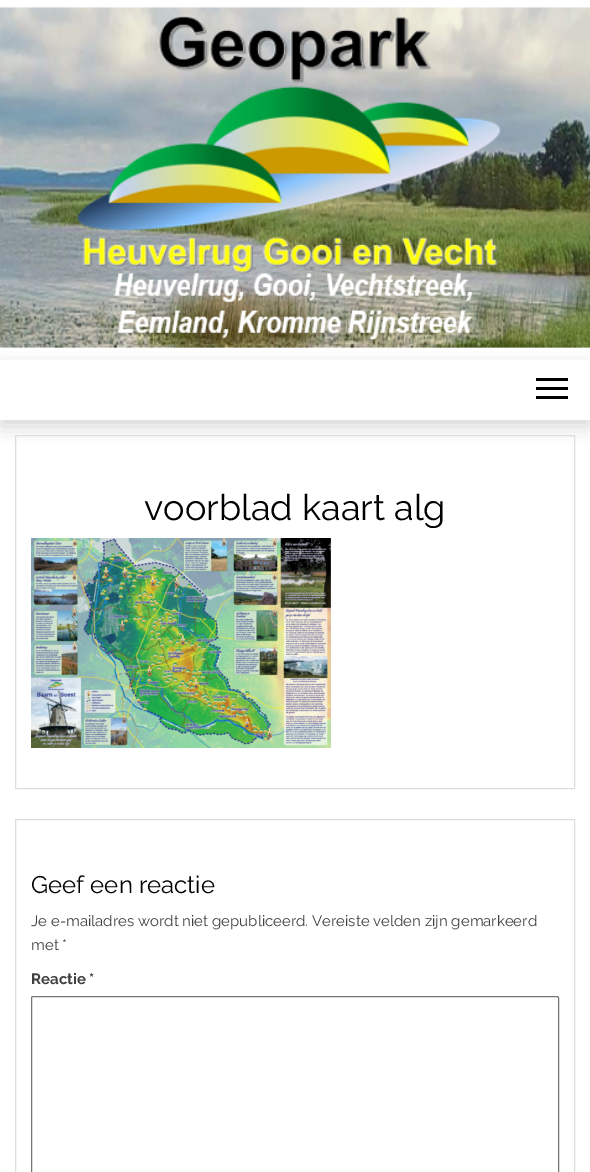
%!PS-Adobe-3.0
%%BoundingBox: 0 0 590 1172
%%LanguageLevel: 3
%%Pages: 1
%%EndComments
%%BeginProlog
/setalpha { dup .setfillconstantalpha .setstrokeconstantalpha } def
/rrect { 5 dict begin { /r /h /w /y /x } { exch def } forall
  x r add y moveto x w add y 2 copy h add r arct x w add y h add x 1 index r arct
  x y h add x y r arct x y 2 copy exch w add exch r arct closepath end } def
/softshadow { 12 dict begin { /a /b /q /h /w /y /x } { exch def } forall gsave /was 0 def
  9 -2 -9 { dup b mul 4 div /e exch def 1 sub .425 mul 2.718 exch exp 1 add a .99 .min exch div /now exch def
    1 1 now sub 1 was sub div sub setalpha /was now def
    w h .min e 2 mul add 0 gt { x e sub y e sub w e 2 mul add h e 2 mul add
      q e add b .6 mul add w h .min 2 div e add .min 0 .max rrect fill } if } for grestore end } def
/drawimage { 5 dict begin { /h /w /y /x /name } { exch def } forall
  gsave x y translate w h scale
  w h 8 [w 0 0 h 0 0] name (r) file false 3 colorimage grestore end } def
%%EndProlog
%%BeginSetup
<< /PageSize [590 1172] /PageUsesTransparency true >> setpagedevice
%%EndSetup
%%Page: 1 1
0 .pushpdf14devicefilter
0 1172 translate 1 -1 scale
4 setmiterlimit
1 setgray
0 0 590 1172 rectfill
(images/1.raw) 0 7 590 341 drawimage
0 setgray
1 368 588 58 0 9.5 0.17 softshadow
1 setgray
0 360 590 60 rectfill
0 setgray
536 378 32 3 rectfill
536 387 32 3 rectfill
536 396 32 3 rectfill
0.867 setgray
15.5 435.5 559 353 rectstroke
(images/2.raw) 31 538 300 210 drawimage
15.5 819.5 559 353 rectstroke
0.463 setgray
31.5 996.5 527 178 1.5 rrect stroke
/Raleway-Regular [36 0 0 -36 0 0] selectfont
0 setgray
144 520 moveto (voorblad kaart alg) show
/Raleway-Regular [24 0 0 -24 0 0] selectfont
31 893 moveto (Geef een reactie) show
/Raleway-Regular [15 0 0 -15 0 0] selectfont
0.251 setgray
31 926 moveto (Je e-mailadres wordt niet gepubliceerd. Vereiste velden zijn gemarkeerd) show
31 950 moveto (met *) show
/Raleway-Bold [15 0 0 -15 0 0] selectfont
31 984 moveto (Reactie *) show
.poppdf14devicefilter showpage
%%EOF
